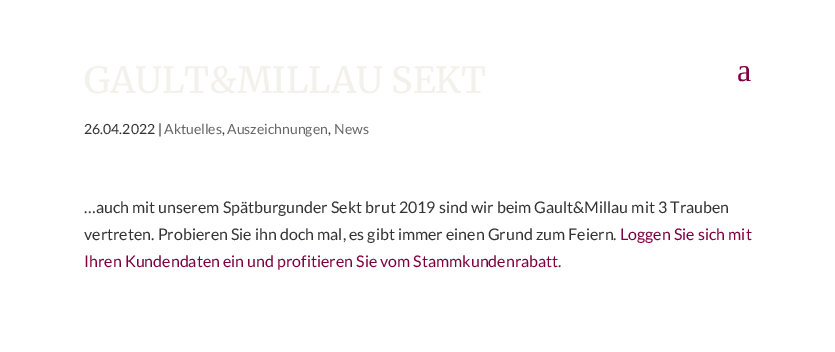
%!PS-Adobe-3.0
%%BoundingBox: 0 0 835 352
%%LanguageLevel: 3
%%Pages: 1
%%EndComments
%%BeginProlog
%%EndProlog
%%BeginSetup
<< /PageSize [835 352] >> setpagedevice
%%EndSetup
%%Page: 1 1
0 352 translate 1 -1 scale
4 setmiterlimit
1 setgray
0 0 835 352 rectfill
/Merriweather-Light [36 0 0 -36 0 0] selectfont
0.953 0.945 0.925 setrgbcolor
84 93 moveto (GAULT&MILLAU SEKT) show
/Lato-Regular [14 0 0 -14 0 0] selectfont
0.2 setgray
84 134 moveto (26.04.2022 |) show
0.4 setgray
164 134 moveto (Aktuelles) show
0.2 setgray
222 134 moveto (,) show
0.4 setgray
227 134 moveto (Auszeichnungen) show
0.2 setgray
328 134 moveto (,) show
0.4 setgray
334 134 moveto (News) show
/Lato-Regular [16 0 0 -16 0 0] selectfont
0.2 setgray
84 213 moveto (…auch mit unserem Spätburgunder Sekt brut 2019 sind wir beim Gault&Millau mit 3 Trauben) show
84 240 moveto (vertreten. Probieren Sie ihn doch mal, es gibt immer einen Grund zum Feiern.) show
0.49 0 0.255 setrgbcolor
620 240 moveto (Loggen Sie sich mit) show
84 267 moveto (Ihren Kundendaten ein und profitieren Sie vom Stammkundenrabatt.) show
/LiberationSerif-Regular [32 0 0 -32 0 0] selectfont
737 81 moveto (a) show
showpage
%%EOF
